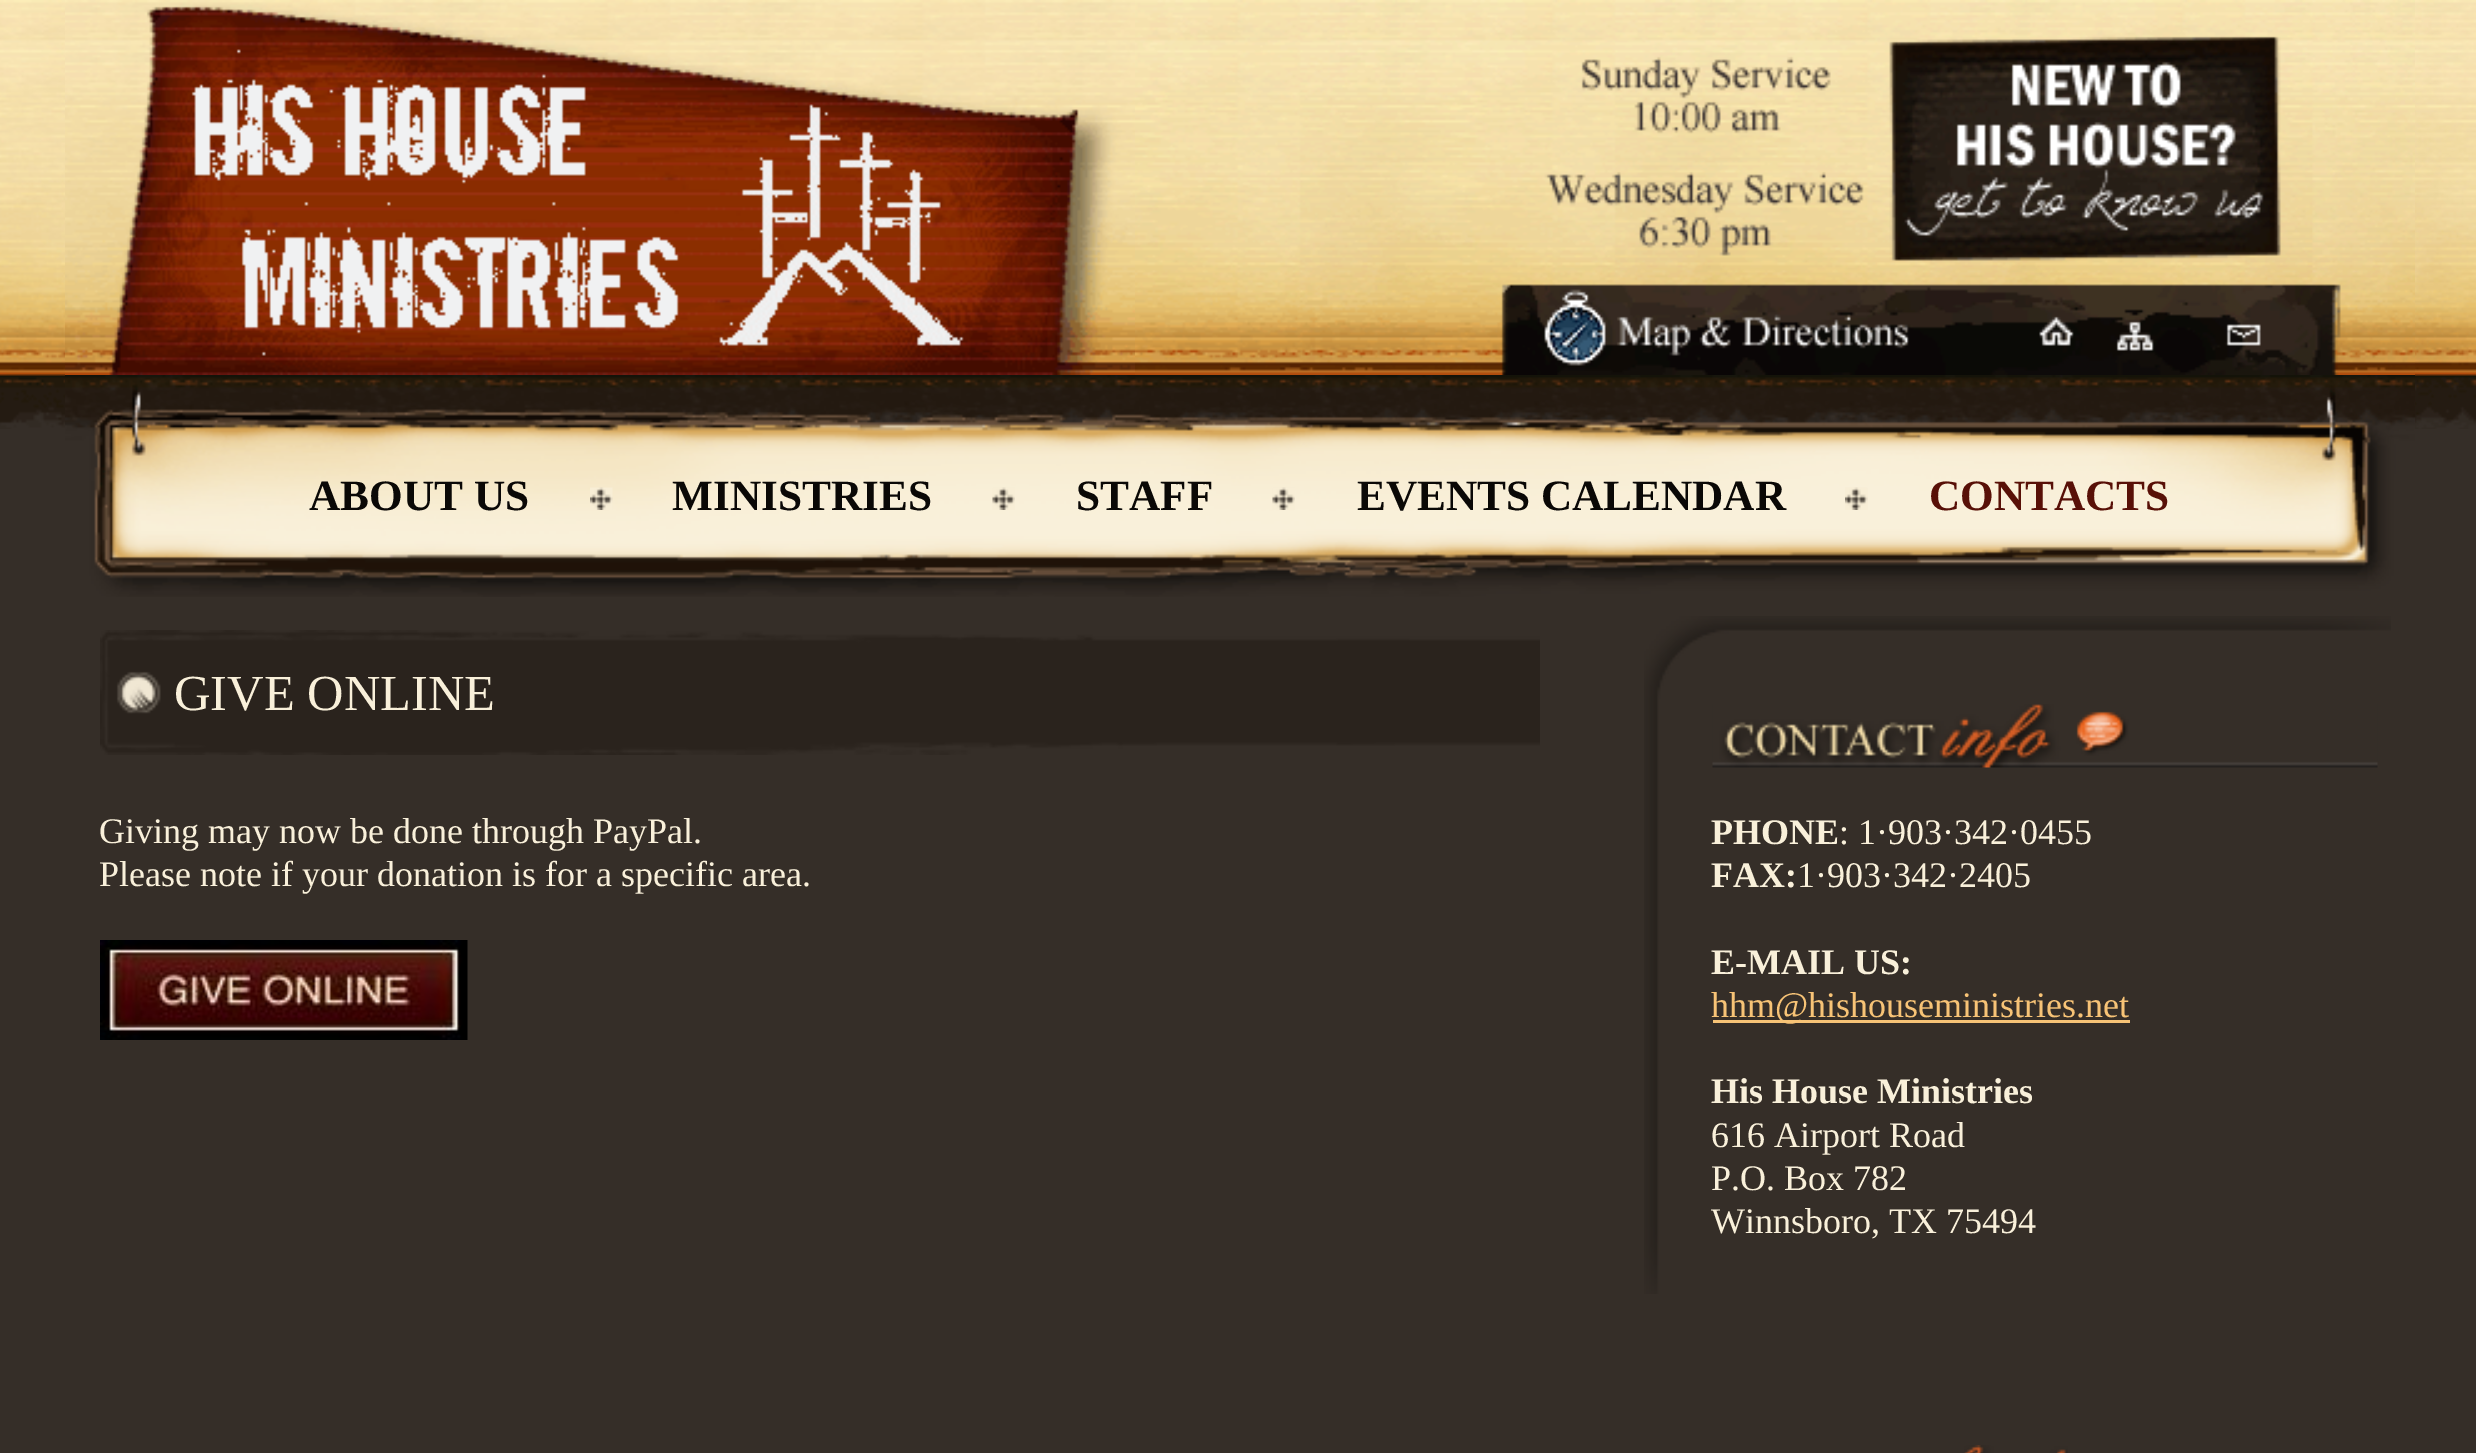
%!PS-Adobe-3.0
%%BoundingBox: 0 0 2476 1453
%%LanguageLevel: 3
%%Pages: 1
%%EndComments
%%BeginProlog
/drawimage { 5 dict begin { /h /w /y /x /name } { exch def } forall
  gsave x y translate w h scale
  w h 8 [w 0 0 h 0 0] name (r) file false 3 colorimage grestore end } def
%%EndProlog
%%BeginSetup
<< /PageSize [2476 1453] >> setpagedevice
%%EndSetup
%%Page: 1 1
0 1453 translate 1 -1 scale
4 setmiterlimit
0.208 0.18 0.157 setrgbcolor
0 0 2476 1453 rectfill
(images/1.raw) 0 0 2476 429 drawimage
(images/2.raw) 65 0 1070 375 drawimage
(images/3.raw) 1135 0 1280 375 drawimage
(images/4.raw) 65 375 2350 222 drawimage
(images/5.raw) 590 487 23 23 drawimage
(images/6.raw) 992 487 23 23 drawimage
(images/7.raw) 1272 487 23 23 drawimage
(images/8.raw) 1845 487 23 23 drawimage
(images/9.raw) 100 630 1440 125 drawimage
(images/10.raw) 100 940 368 100 drawimage
(images/11.raw) 1644 616 747 678 drawimage
(images/12.raw) 1712 704 666 64 drawimage
0.969 0.765 0.463 setrgbcolor
1713 1020 417 3 rectfill
(images/13.raw) 1964 1445 104 8 drawimage
/LiberationSerif-Bold [43.25 0 0 -43.25 0 0] selectfont
0.039 0.031 0.024 setrgbcolor
309 510 moveto (ABOUT US) show
672 510 moveto (MINISTRIES) show
1076 510 moveto (STAFF) show
1357 510 moveto (EVENTS CALENDAR) show
0.345 0.063 0.027 setrgbcolor
1929 510 moveto (CONTACTS) show
/LiberationSerif-Regular [50.5 0 0 -50.5 0 0] selectfont
0.976 0.941 0.855 setrgbcolor
174 710 moveto (GIVE ONLINE) show
/LiberationSerif-Regular [36 0 0 -36 0 0] selectfont
99 843 moveto (Giving may now be done through PayPal.) show
99 886 moveto (Please note if your donation is for a specific area.) show
/LiberationSerif-Bold [36 0 0 -36 0 0] selectfont
1711 844 moveto (PHONE) show
/LiberationSerif-Regular [36 0 0 -36 0 0] selectfont
1839 844 moveto (: 1·903·342·0455) show
/LiberationSerif-Bold [36 0 0 -36 0 0] selectfont
1711 887 moveto (FAX:) show
/LiberationSerif-Regular [36 0 0 -36 0 0] selectfont
1797 887 moveto (1·903·342·2405) show
/LiberationSerif-Bold [36 0 0 -36 0 0] selectfont
1711 974 moveto (E-MAIL US:) show
/LiberationSerif-Regular [36 0 0 -36 0 0] selectfont
0.969 0.765 0.463 setrgbcolor
1711 1017 moveto (hhm@hishouseministries.net) show
/LiberationSerif-Bold [36 0 0 -36 0 0] selectfont
0.976 0.941 0.855 setrgbcolor
1711 1103 moveto (His House Ministries) show
/LiberationSerif-Regular [36 0 0 -36 0 0] selectfont
1711 1147 moveto (616 Airport Road) show
1711 1190 moveto (P.O. Box 782) show
1711 1233 moveto (Winnsboro, TX 75494) show
showpage
%%EOF
